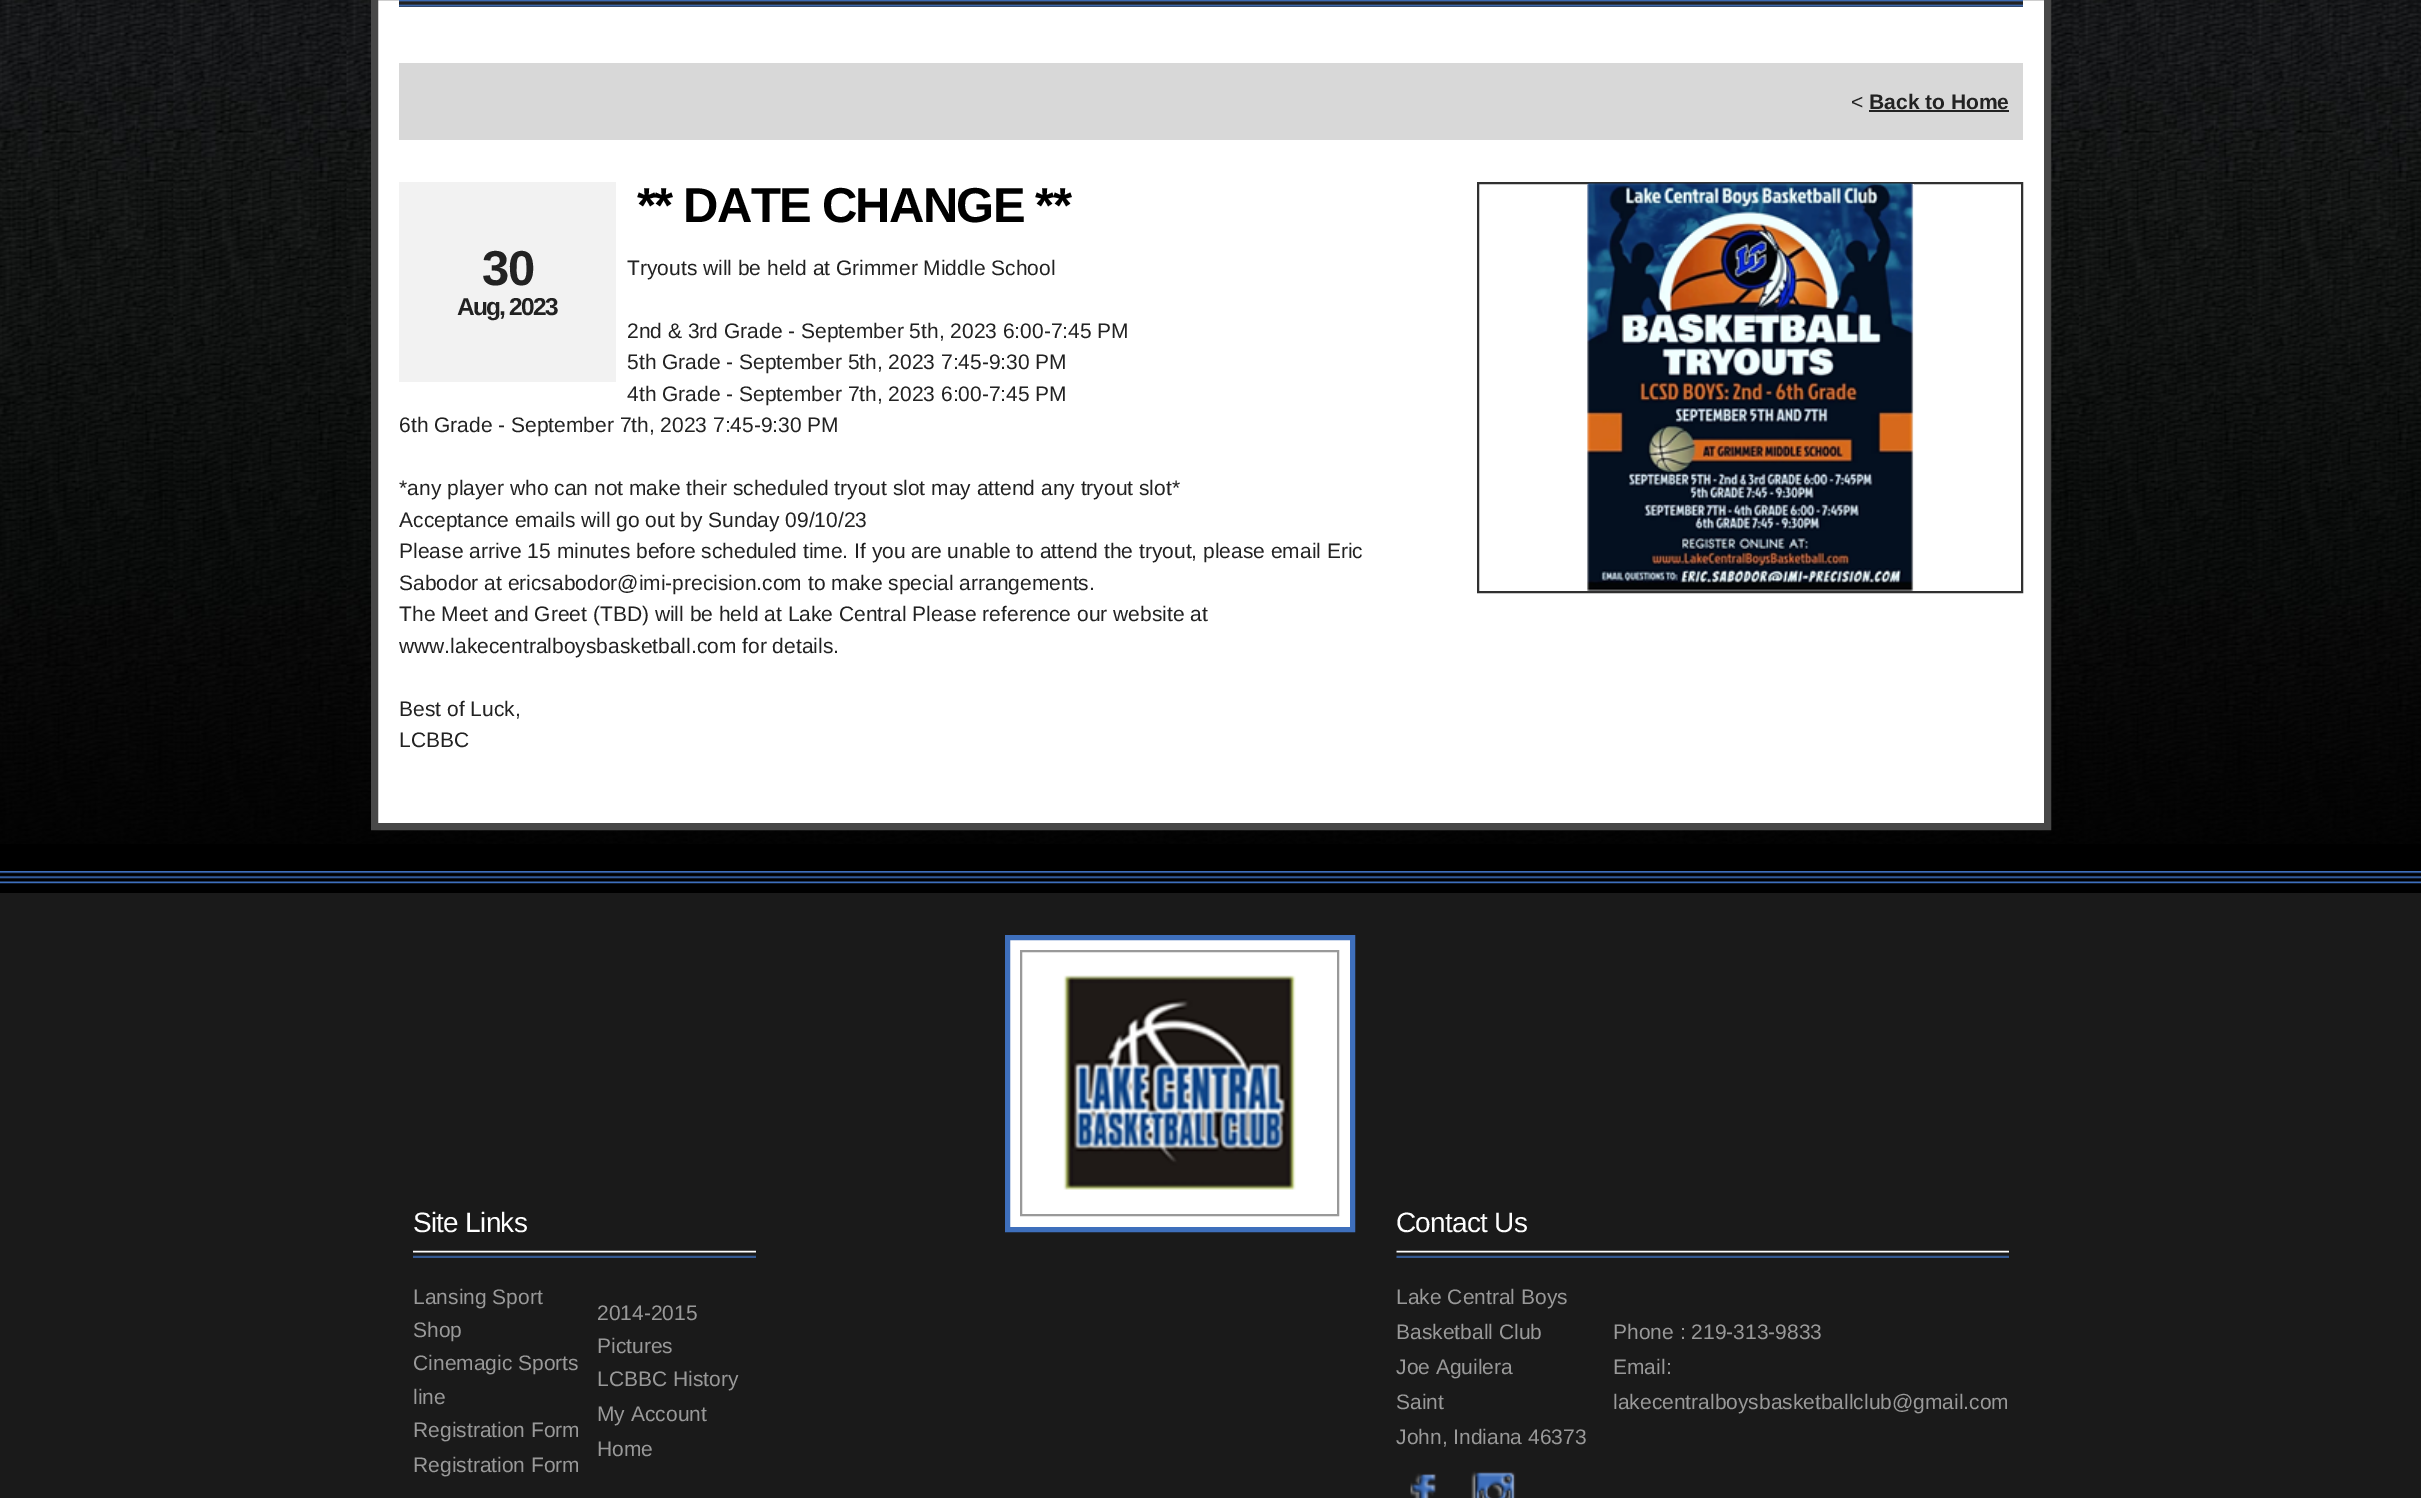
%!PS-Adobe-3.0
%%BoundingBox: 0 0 2421 1498
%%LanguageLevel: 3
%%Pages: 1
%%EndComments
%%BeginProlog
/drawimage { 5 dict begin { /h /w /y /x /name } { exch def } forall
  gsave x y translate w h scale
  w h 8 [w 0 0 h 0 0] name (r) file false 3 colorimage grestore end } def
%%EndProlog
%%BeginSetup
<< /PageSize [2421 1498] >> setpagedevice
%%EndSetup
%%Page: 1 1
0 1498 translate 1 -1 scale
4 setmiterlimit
0 setgray
0 0 2421 1498 rectfill
(images/1.raw) 0 0 2421 844 drawimage
1 setgray
newpath 374.5 -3.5 moveto 2047.5 -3.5 lineto 2047.5 826.5 lineto 374.5 826.5 lineto closepath gsave fill grestore
0.282 setgray
7 setlinewidth
stroke
0.137 setgray
399 0 1624 7 rectfill
(images/2.raw) 399 0 1624 7 drawimage
0.847 setgray
399 63 1624 77 rectfill
0.133 setgray
1869 110 140 2 rectfill
0.188 setgray
2 setlinewidth
1478 183 544 409 rectstroke
(images/3.raw) 1587 183 327 408 drawimage
0.949 setgray
399 182 217 200 rectfill
(images/4.raw) 0 871 2421 13 drawimage
0.102 setgray
0 893 2421 605 rectfill
1 setgray
newpath 1007.5 937.5 moveto 1352.5 937.5 lineto 1352.5 1229.5 lineto 1007.5 1229.5 lineto closepath gsave fill grestore
0.243 0.435 0.737 setrgbcolor
5 setlinewidth
stroke
0.6 setgray
2 setlinewidth
1021 951 317 264 rectstroke
(images/5.raw) 1063 975 233 215 drawimage
(images/6.raw) 413 1250 343 8 drawimage
(images/7.raw) 1396 1250 613 8 drawimage
(images/8.raw) 1410 1473 27 25 drawimage
(images/9.raw) 1471 1471 45 27 drawimage
/LiberationSans-Regular [21 0 0 -21 0 0] selectfont
0.133 setgray
1851 109 moveto (<) show
/LiberationSans-Bold [21 0 0 -21 0 0] selectfont
1869 109 moveto (Back to Home) show
/LiberationSans-Bold [49 0 0 -49 0 0] selectfont
0 setgray
637 222 moveto -1.75 0 (** DATE CHANGE **) ashow
0.133 setgray
482 285 moveto -1.75 0 (30) ashow
/LiberationSans-Bold [24.5 0 0 -24.5 0 0] selectfont
457 315 moveto -1.75 0 (Aug, 2023) ashow
/LiberationSans-Regular [21 0 0 -21 0 0] selectfont
627 275 moveto (Tryouts will be held at Grimmer Middle School) show
627 338 moveto (2nd & 3rd Grade - September 5th, 2023 6:00-7:45 PM) show
627 369 moveto (5th Grade - September 5th, 2023 7:45-9:30 PM) show
627 401 moveto (4th Grade - September 7th, 2023 6:00-7:45 PM) show
399 432 moveto (6th Grade - September 7th, 2023 7:45-9:30 PM) show
399 495 moveto (*any player who can not make their scheduled tryout slot may attend any tryout slot*) show
399 527 moveto (Acceptance emails will go out by Sunday 09/10/23) show
399 558 moveto (Please arrive 15 minutes before scheduled time. If you are unable to attend the tryout, please email Eric) show
399 590 moveto (Sabodor at ericsabodor@imi-precision.com to make special arrangements.) show
399 621 moveto (The Meet and Greet \(TBD\) will be held at Lake Central Please reference our website at) show
399 653 moveto (www.lakecentralboysbasketball.com for details.) show
399 716 moveto (Best of Luck,) show
399 747 moveto (LCBBC) show
/LiberationSans-Regular [28 0 0 -28 0 0] selectfont
1 setgray
413 1232 moveto -0.75 0 (Site Links) ashow
/LiberationSans-Regular [21 0 0 -21 0 0] selectfont
0.6 setgray
413 1304 moveto (Lansing Sport) show
413 1337 moveto (Shop) show
413 1370 moveto (Cinemagic Sports) show
413 1404 moveto (line) show
413 1437 moveto (Registration Form) show
413 1472 moveto (Registration Form) show
597 1320 moveto (2014-2015) show
597 1353 moveto (Pictures) show
597 1386 moveto (LCBBC History) show
597 1421 moveto (My Account) show
597 1456 moveto (Home) show
/LiberationSans-Regular [28 0 0 -28 0 0] selectfont
1 setgray
1396 1232 moveto -0.75 0 (Contact Us) ashow
/LiberationSans-Regular [21 0 0 -21 0 0] selectfont
0.6 setgray
1396 1304 moveto (Lake Central Boys) show
1396 1339 moveto (Basketball Club) show
1396 1374 moveto (Joe Aguilera) show
1396 1409 moveto (Saint) show
1396 1444 moveto (John, Indiana 46373) show
1613 1339 moveto (Phone : 219-313-9833) show
1613 1374 moveto (Email:) show
1613 1409 moveto (lakecentralboysbasketballclub@gmail.com) show
showpage
%%EOF
